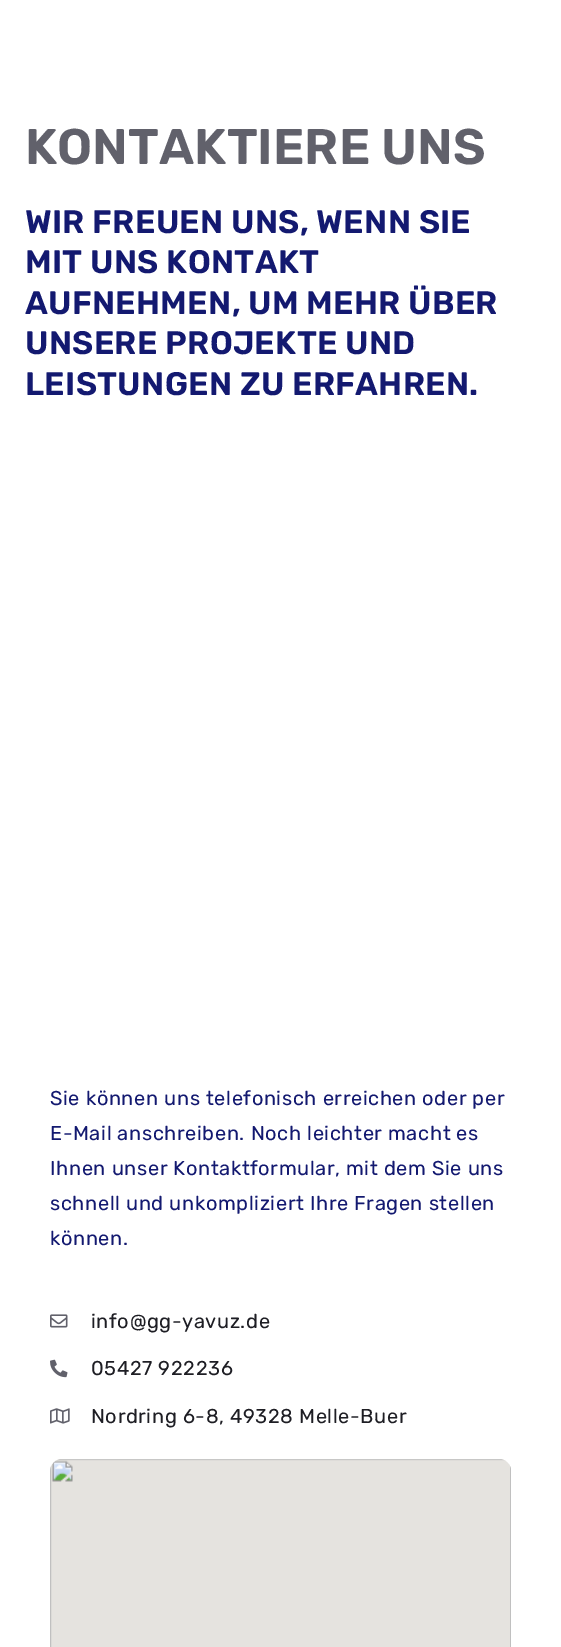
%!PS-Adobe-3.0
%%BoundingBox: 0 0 561 1647
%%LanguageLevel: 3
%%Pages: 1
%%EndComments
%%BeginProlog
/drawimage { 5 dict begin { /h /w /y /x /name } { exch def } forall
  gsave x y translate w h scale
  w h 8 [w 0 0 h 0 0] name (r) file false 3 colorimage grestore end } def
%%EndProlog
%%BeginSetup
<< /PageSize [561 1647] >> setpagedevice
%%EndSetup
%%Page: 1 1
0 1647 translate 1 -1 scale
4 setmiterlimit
1 setgray
0 0 561 1647 rectfill
(images/1.raw) 50 1314 18 14 drawimage
(images/2.raw) 50 1359 18 19 drawimage
(images/3.raw) 50 1408 20 16 drawimage
(images/4.raw) 50 1459 461 188 drawimage
/Rubik-SemiBold [50 0 0 -50 0 0] selectfont
0.38 0.38 0.42 setrgbcolor
25 164 moveto (KONTAKTIERE UNS) show
/Rubik-SemiBold [32.5 0 0 -32.5 0 0] selectfont
0.075 0.098 0.439 setrgbcolor
25 233 moveto 0.3 0 (WIR FREUEN UNS, WENN SIE) ashow
25 273 moveto 0.3 0 (MIT UNS KONTAKT) ashow
25 314 moveto 0.3 0 (AUFNEHMEN, UM MEHR ÜBER) ashow
25 354 moveto 0.3 0 (UNSERE PROJEKTE UND) ashow
25 395 moveto 0.3 0 (LEISTUNGEN ZU ERFAHREN.) ashow
/Rubik-Regular [20 0 0 -20 0 0] selectfont
50 1105 moveto 0.6 0 (Sie können uns telefonisch erreichen oder per) ashow
50 1140 moveto 0.6 0 (E-Mail anschreiben. Noch leichter macht es) ashow
50 1175 moveto 0.6 0 (Ihnen unser Kontaktformular, mit dem Sie uns) ashow
50 1210 moveto 0.6 0 (schnell und unkompliziert Ihre Fragen stellen) ashow
50 1245 moveto 0.6 0 (können.) ashow
0.118 0.118 0.141 setrgbcolor
91 1328 moveto 0.6 0 (info@gg-yavuz.de) ashow
91 1375 moveto 0.6 0 (05427 922236) ashow
91 1423 moveto 0.6 0 (Nordring 6-8, 49328 Melle-Buer) ashow
showpage
%%EOF
